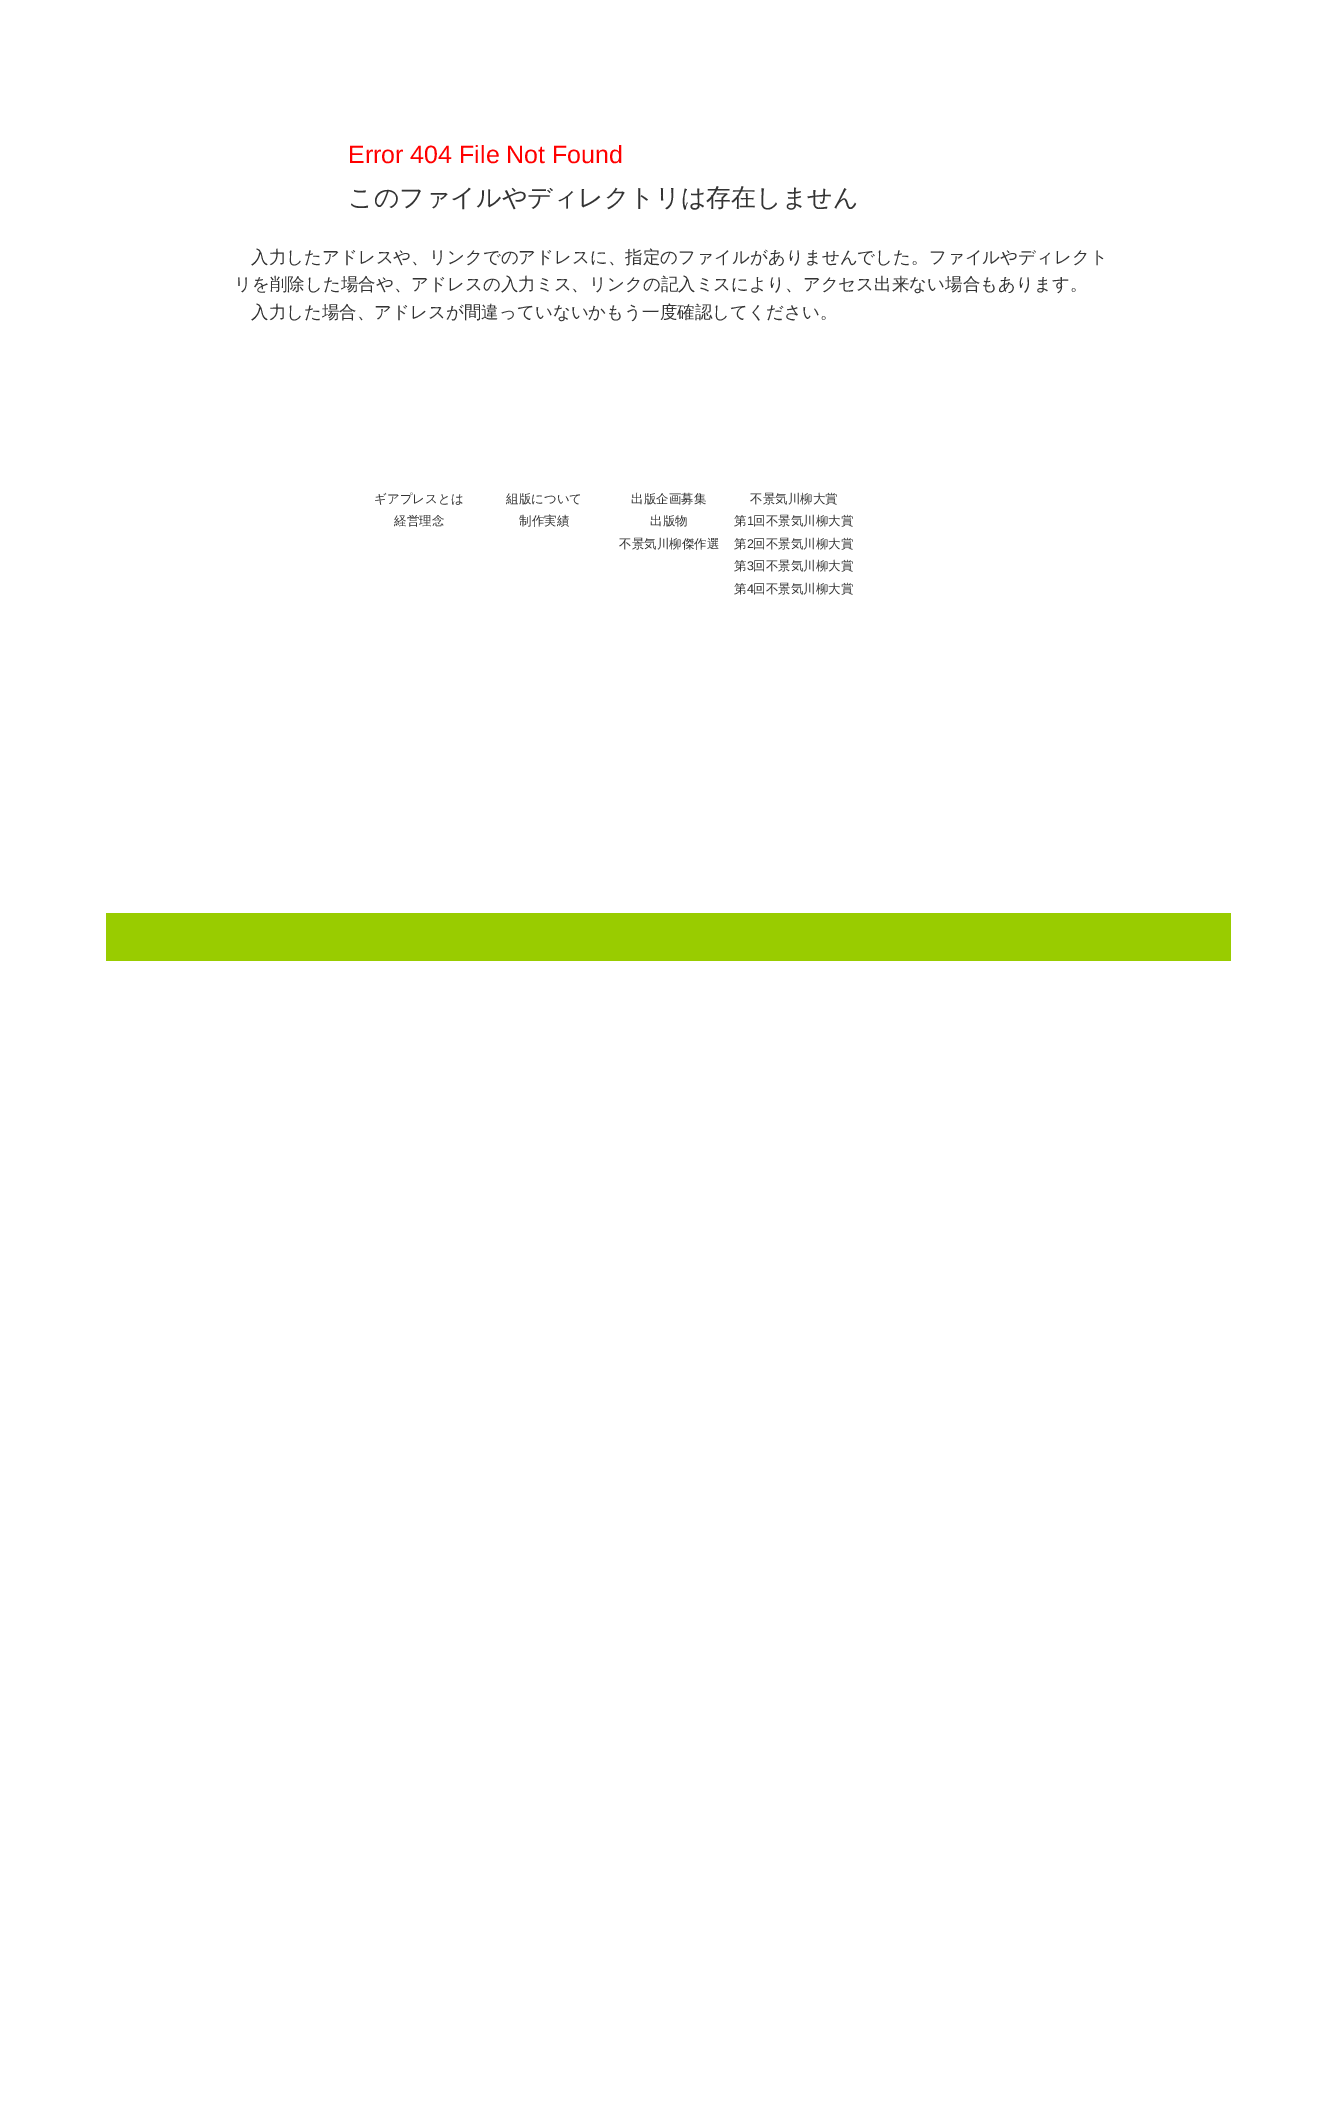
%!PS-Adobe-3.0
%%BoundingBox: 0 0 1337 2116
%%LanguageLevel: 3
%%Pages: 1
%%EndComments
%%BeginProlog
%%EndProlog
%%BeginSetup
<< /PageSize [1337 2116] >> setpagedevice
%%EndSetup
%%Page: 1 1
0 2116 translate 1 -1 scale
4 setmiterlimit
1 setgray
0 0 1337 2116 rectfill
0.6 0.8 0 setrgbcolor
106 913 1125 48 rectfill
/LiberationSans-Regular [25 0 0 -25 0 0] selectfont
1 0 0 setrgbcolor
348 163 moveto (Error 404 File Not Found) show
/WenQuanYiZenHei-Medium [25 0 0 -25 0 0] selectfont
0.2 setgray
348 206 moveto (このファイルやディレクトリは存在しません) show
/WenQuanYiZenHei-Medium [17.5 0 0 -17.5 0 0] selectfont
251 263 moveto (入力したアドレスや、リンクでのアドレスに、指定のファイルがありませんでした。ファイルやディレクト) show
234 290 moveto (リを削除した場合や、アドレスの入力ミス、リンクの記入ミスにより、アクセス出来ない場合もあります。) show
251 318 moveto (入力した場合、アドレスが間違っていないかもう一度確認してください。) show
/WenQuanYiZenHei-Medium [12.5 0 0 -12.5 0 0] selectfont
374 503 moveto (ギアプレスとは) show
506 503 moveto (組版について) show
631 503 moveto (出版企画募集) show
750 503 moveto (不景気川柳大賞) show
394 525 moveto (経営理念) show
519 525 moveto (制作実績) show
650 525 moveto (出版物) show
734 525 moveto (第) show
/LiberationSans-Regular [12.5 0 0 -12.5 0 0] selectfont
747 525 moveto (1) show
/WenQuanYiZenHei-Medium [12.5 0 0 -12.5 0 0] selectfont
753 525 moveto (回不景気川柳大賞) show
619 548 moveto (不景気川柳傑作選) show
734 548 moveto (第) show
/LiberationSans-Regular [12.5 0 0 -12.5 0 0] selectfont
747 548 moveto (2) show
/WenQuanYiZenHei-Medium [12.5 0 0 -12.5 0 0] selectfont
753 548 moveto (回不景気川柳大賞) show
734 570 moveto (第) show
/LiberationSans-Regular [12.5 0 0 -12.5 0 0] selectfont
747 570 moveto (3) show
/WenQuanYiZenHei-Medium [12.5 0 0 -12.5 0 0] selectfont
753 570 moveto (回不景気川柳大賞) show
734 593 moveto (第) show
/LiberationSans-Regular [12.5 0 0 -12.5 0 0] selectfont
747 593 moveto (4) show
/WenQuanYiZenHei-Medium [12.5 0 0 -12.5 0 0] selectfont
753 593 moveto (回不景気川柳大賞) show
showpage
%%EOF
